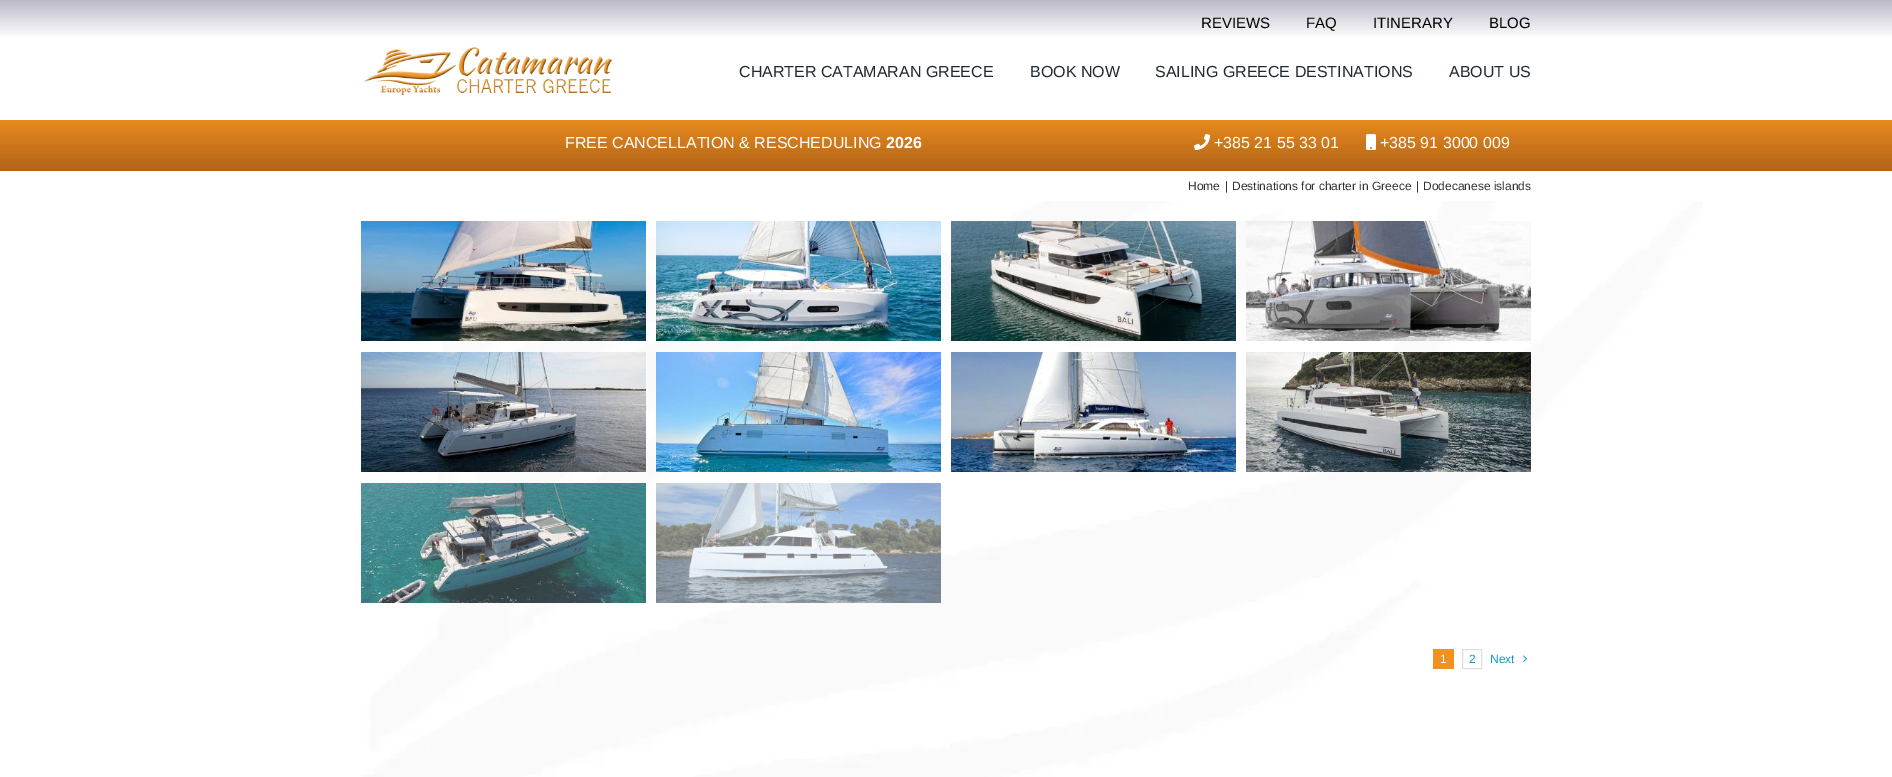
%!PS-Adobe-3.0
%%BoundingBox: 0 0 1892 777
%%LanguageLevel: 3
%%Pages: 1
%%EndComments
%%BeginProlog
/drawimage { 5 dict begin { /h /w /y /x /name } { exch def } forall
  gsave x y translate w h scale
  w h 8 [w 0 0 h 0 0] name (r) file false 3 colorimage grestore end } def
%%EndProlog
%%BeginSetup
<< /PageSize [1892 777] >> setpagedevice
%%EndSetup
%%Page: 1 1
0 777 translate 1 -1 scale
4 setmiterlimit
1 setgray
0 0 1892 777 rectfill
gsave newpath 0 0 moveto 1892 0 lineto 1892 37 lineto 0 37 lineto closepath clip newpath
<< /ShadingType 2 /ColorSpace /DeviceRGB /Coords [946 0 946 38] /Extend [true true] /Function << /FunctionType 2 /Domain [0 1] /C0 [0.729 0.725 0.78] /C1 [1 1 1] /N 1 >> >> shfill grestore
(images/1.raw) 364 47 248 48 drawimage
gsave newpath 0 120 moveto 1892 120 lineto 1892 171 lineto 0 171 lineto closepath clip newpath
<< /ShadingType 2 /ColorSpace /DeviceRGB /Coords [946 110 946 171] /Extend [true true] /Function << /FunctionType 2 /Domain [0 1] /C0 [0.941 0.569 0.129] /C1 [0.698 0.388 0.094] /N 1 >> >> shfill grestore
(images/2.raw) 1194 134 16 16 drawimage
(images/3.raw) 1366 134 10 16 drawimage
(images/4.raw) 362 201 1340 576 drawimage
(images/5.raw) 361 221 285 120 drawimage
(images/6.raw) 656 221 285 120 drawimage
(images/7.raw) 951 221 285 120 drawimage
(images/8.raw) 1246 221 285 120 drawimage
(images/9.raw) 361 352 285 120 drawimage
(images/10.raw) 656 352 285 120 drawimage
(images/11.raw) 951 352 285 120 drawimage
(images/12.raw) 1246 352 285 120 drawimage
(images/13.raw) 361 483 285 120 drawimage
(images/14.raw) 656 483 285 120 drawimage
0.941 0.569 0.129 setrgbcolor
1433 649 21 20 rectfill
0.878 0.871 0.871 setrgbcolor
1462.5 649.5 19 19 rectstroke
(images/15.raw) 1523 655 4 7 drawimage
/LiberationSans-Regular [15 0 0 -15 0 0] selectfont
0 setgray
1201 28 moveto (REVIEWS) show
1306 28 moveto (FAQ) show
1373 28 moveto (ITINERARY) show
1489 28 moveto (BLOG) show
/LiberationSans-Regular [16 0 0 -16 0 0] selectfont
0.129 0.161 0.204 setrgbcolor
739 77 moveto (CHARTER CATAMARAN GREECE) show
1030 77 moveto (BOOK NOW) show
1155 77 moveto (SAILING GREECE DESTINATIONS) show
1449 77 moveto (ABOUT US) show
1 setgray
565 148 moveto (FREE CANCELLATION & RESCHEDULING) show
/LiberationSans-Bold [16 0 0 -16 0 0] selectfont
886 148 moveto (2026) show
/LiberationSans-Regular [16 0 0 -16 0 0] selectfont
1214 148 moveto (+385 21 55 33 01) show
1380 148 moveto (+385 91 3000 009) show
/LiberationSans-Regular [12 0 0 -12 0 0] selectfont
0.2 setgray
1188 190 moveto (Home) show
1225 190 moveto (|) show
1232 190 moveto (Destinations for charter in Greece) show
1416 190 moveto (|) show
1423 190 moveto (Dodecanese islands) show
1 setgray
1440 663 moveto (1) show
0.063 0.608 0.773 setrgbcolor
1469 663 moveto (2) show
1490 663 moveto (Next) show
showpage
%%EOF
